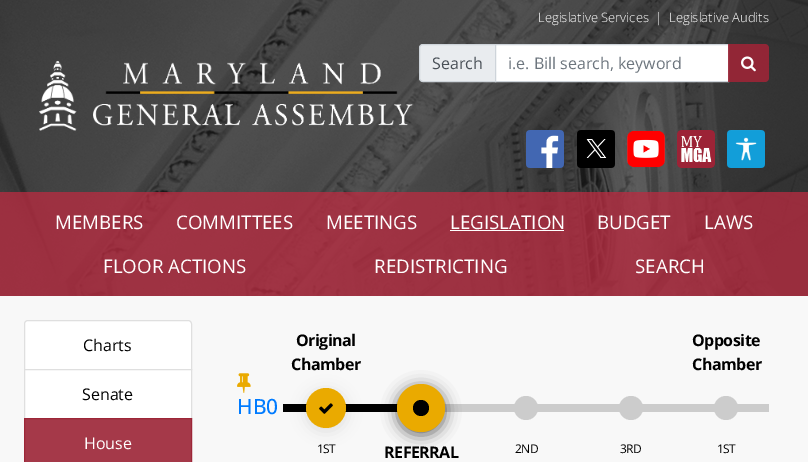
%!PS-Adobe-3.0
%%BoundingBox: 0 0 808 462
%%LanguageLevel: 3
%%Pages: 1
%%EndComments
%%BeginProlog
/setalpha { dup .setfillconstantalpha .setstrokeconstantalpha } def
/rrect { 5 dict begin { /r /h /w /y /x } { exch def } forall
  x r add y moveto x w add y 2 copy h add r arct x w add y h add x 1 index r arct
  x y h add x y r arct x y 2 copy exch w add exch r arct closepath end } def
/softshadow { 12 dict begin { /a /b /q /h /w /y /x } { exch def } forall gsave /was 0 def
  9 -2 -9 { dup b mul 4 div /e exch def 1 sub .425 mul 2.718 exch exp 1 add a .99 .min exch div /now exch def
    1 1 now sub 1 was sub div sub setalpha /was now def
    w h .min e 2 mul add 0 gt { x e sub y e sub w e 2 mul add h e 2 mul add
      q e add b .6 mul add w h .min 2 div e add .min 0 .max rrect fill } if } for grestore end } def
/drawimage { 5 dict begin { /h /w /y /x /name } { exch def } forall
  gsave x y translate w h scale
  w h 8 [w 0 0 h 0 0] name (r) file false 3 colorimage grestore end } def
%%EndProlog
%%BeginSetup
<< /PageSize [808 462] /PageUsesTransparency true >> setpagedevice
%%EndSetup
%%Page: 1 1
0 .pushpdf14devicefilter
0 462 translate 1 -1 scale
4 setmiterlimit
0.973 setgray
0 0 808 462 rectfill
(images/1.raw) 0 0 808 296 drawimage
0.6 setalpha
0 setgray
0 0 808 192 rectfill
1 setalpha
0.914 0.925 0.937 setrgbcolor
newpath 423 44.5 moveto 495.5 44.5 lineto 495.5 81.5 lineto 423 81.5 lineto 421 81.5 419.5 80 419.5 78 curveto 419.5 48 lineto 419.5 46 421 44.5 423 44.5 curveto closepath gsave fill grestore
0.808 0.831 0.855 setrgbcolor
stroke
1 setgray
newpath 495.5 44.5 moveto 728.5 44.5 lineto 728.5 81.5 lineto 495.5 81.5 lineto closepath gsave fill grestore
0.808 0.831 0.855 setrgbcolor
stroke
0.9 setalpha
0.612 0.141 0.212 setrgbcolor
newpath 728 44 moveto 765 44 lineto 767 44 769 46 769 48 curveto 769 78 lineto 769 80 767 82 765 82 curveto 728 82 lineto closepath fill
1 setalpha
(images/2.raw) 741 56 15 16 drawimage
(images/3.raw) 526 130 38 38 drawimage
(images/4.raw) 577 130 38 38 drawimage
(images/5.raw) 627 130 38 38 drawimage
(images/6.raw) 677 130 38 38 drawimage
(images/7.raw) 727 130 38 38 drawimage
(images/8.raw) 39 60 374 71 drawimage
0.9 setalpha
0 192 808 104 rectfill
1 setalpha
1 setgray
450 230 114 1 rectfill
newpath 28 320.5 moveto 188 320.5 lineto 190 320.5 191.5 322 191.5 324 curveto 191.5 369.5 lineto 24.5 369.5 lineto 24.5 324 lineto 24.5 322 26 320.5 28 320.5 curveto closepath gsave fill grestore
0.875 setgray
stroke
1 setgray
newpath 24.5 369.5 moveto 191.5 369.5 lineto 191.5 418.5 lineto 24.5 418.5 lineto closepath gsave fill grestore
0.875 setgray
stroke
0.9 setalpha
0.612 0.141 0.212 setrgbcolor
24 418 168 44 rectfill
24.5 418.5 167 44 rectstroke
1 setalpha
(images/9.raw) 237 373 14 20 drawimage
0 setgray
283 404 86 8 rectfill
306 391 40 40 20 7.5 0.1 softshadow
0.918 0.667 0 setrgbcolor
newpath 326 408 20 0 360 arc closepath fill
(images/10.raw) 319 403 14 11 drawimage
0 setgray
369 404 29 8 rectfill
0.8 setgray
444 404 325 8 rectfill
0 setgray
397 387 48 48 24 7.5 0.6 softshadow
0.918 0.667 0 setrgbcolor
newpath 421 408 24 0 360 arc closepath fill
0 setgray
newpath 421 408 8 0 360 arc closepath fill
0.8 setgray
newpath 526 408 12 0 360 arc closepath fill
newpath 631 408 12 0 360 arc closepath fill
newpath 726 408 12 0 360 arc closepath fill
/OpenSans-Light [13 0 0 -13 0 0] selectfont
1 setgray
538 22 moveto (Legislative Services) show
655 22 moveto (|) show
669 22 moveto (Legislative Audits) show
/OpenSans-Regular [16 0 0 -16 0 0] selectfont
0.286 0.314 0.341 setrgbcolor
432 69 moveto (Search) show
0.424 0.459 0.49 setrgbcolor
508 69 moveto (i.e. Bill search, keyword) show
/OpenSans-Regular [18.75 0 0 -18.75 0 0] selectfont
1 setgray
55 229 moveto (MEMBERS) show
176 229 moveto (COMMITTEES) show
326 229 moveto (MEETINGS) show
450 229 moveto (LEGISLATION) show
597 229 moveto (BUDGET) show
704 229 moveto (LAWS) show
103 273 moveto (FLOOR ACTIONS) show
374 273 moveto (REDISTRICTING) show
635 273 moveto (SEARCH) show
/OpenSans-Regular [16 0 0 -16 0 0] selectfont
0 setgray
83 351 moveto (Charts) show
82 400 moveto (Senate) show
1 setgray
84 449 moveto (House) show
/OpenSans-Medium [21 0 0 -21 0 0] selectfont
0 0.482 1 setrgbcolor
237 414 moveto (HB0) show
/OpenSans-Bold [16 0 0 -16 0 0] selectfont
0 setgray
296 346 moveto -0.5 0 (Original) ashow
291 370 moveto -0.5 0 (Chamber) ashow
/OpenSans-Regular [12 0 0 -12 0 0] selectfont
317 453 moveto -0.5 0 (1ST) ashow
/OpenSans-Bold [16 0 0 -16 0 0] selectfont
384 458 moveto -0.5 0 (REFERRAL) ashow
/OpenSans-Regular [12 0 0 -12 0 0] selectfont
515 453 moveto -0.5 0 (2ND) ashow
620 453 moveto -0.5 0 (3RD) ashow
/OpenSans-Bold [16 0 0 -16 0 0] selectfont
692 346 moveto -0.5 0 (Opposite) ashow
692 370 moveto -0.5 0 (Chamber) ashow
/OpenSans-Regular [12 0 0 -12 0 0] selectfont
717 453 moveto -0.5 0 (1ST) ashow
.poppdf14devicefilter showpage
%%EOF
